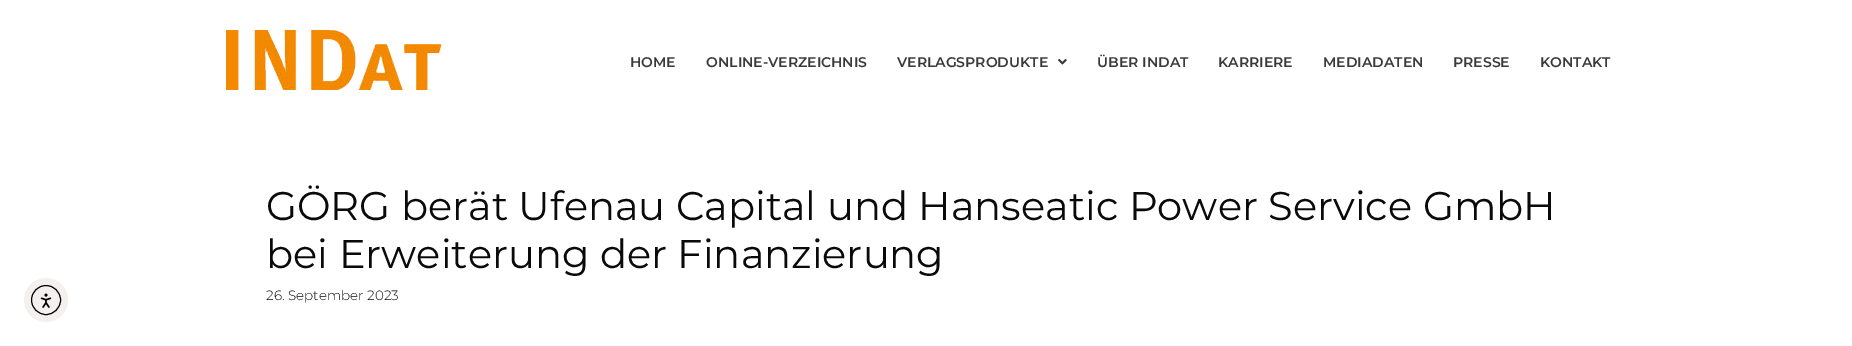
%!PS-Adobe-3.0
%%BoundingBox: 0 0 1852 346
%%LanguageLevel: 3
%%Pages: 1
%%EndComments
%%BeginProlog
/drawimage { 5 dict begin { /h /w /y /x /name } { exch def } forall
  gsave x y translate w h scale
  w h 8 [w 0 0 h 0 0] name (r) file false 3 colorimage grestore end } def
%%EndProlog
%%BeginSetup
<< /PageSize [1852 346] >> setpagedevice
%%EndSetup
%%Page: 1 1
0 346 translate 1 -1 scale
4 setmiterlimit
1 setgray
0 0 1852 346 rectfill
(images/1.raw) 226 30 216 60 drawimage
(images/2.raw) 1058 59 9 6 drawimage
0.957 0.941 0.929 setrgbcolor
newpath 46 300 22 0 360 arc closepath fill
0 setgray
newpath 46 300 14.5 0 360 arc closepath stroke
(images/3.raw) 40 293 12 15 drawimage
/Montserrat-SemiBold [14 0 0 -14 0 0] selectfont
0.227 setgray
630 67 moveto (HOME) show
706 67 moveto (ONLINE-VERZEICHNIS) show
897 67 moveto (VERLAGSPRODUKTE) show
1097 67 moveto (ÜBER INDAT) show
1218 67 moveto (KARRIERE) show
1323 67 moveto (MEDIADATEN) show
1453 67 moveto (PRESSE) show
1540 67 moveto (KONTAKT) show
/Montserrat-Regular [40 0 0 -40 0 0] selectfont
0.039 setgray
266 220 moveto (GÖRG berät Ufenau Capital und Hanseatic Power Service GmbH) show
266 268 moveto (bei Erweiterung der Finanzierung) show
/Montserrat-Light [13.5 0 0 -13.5 0 0] selectfont
266 300 moveto (26. September 2023) show
showpage
%%EOF
